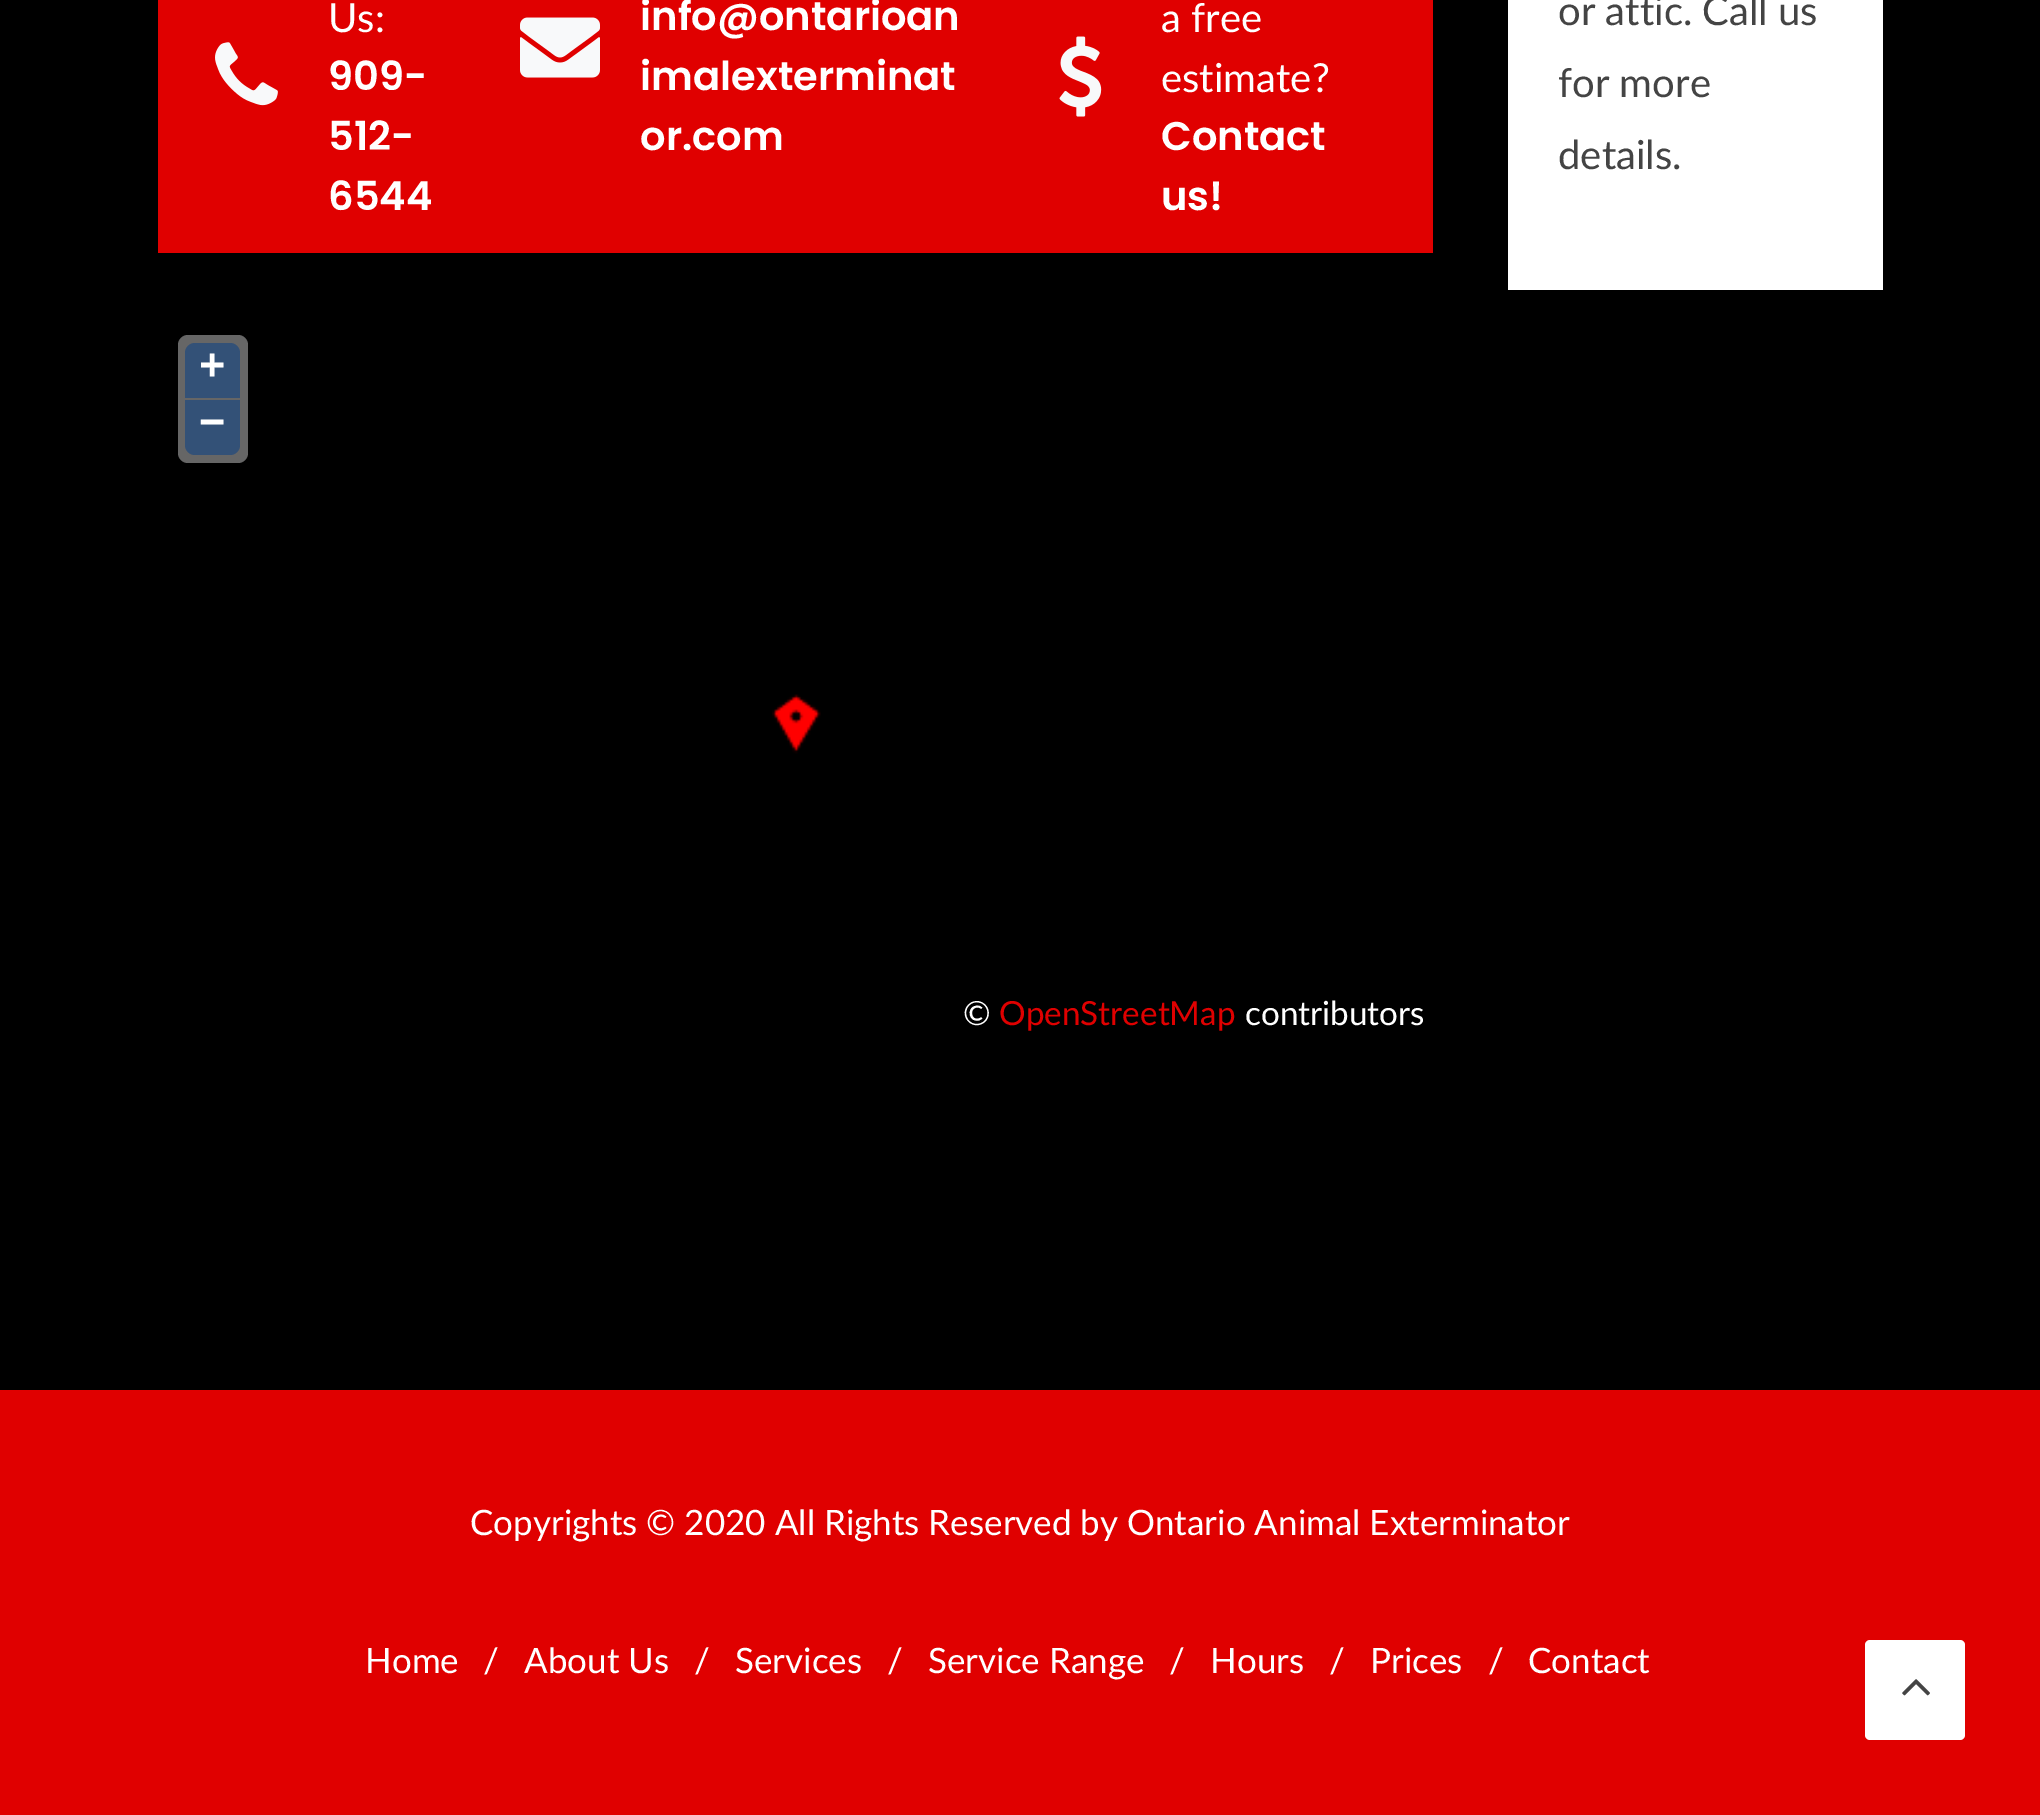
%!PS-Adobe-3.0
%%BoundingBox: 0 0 2040 1815
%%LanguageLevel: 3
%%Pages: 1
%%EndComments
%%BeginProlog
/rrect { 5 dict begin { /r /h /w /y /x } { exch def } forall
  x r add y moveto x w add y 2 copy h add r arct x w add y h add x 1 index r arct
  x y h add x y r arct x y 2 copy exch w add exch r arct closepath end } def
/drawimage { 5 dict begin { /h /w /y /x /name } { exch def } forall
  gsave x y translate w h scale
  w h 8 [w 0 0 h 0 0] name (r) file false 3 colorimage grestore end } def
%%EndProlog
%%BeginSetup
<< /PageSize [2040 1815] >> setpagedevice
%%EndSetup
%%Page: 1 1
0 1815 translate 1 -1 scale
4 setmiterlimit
0 setgray
0 0 2040 1815 rectfill
0.878 0 0 setrgbcolor
158 0 1275 253 rectfill
(images/1.raw) 215 42 63 64 drawimage
(images/2.raw) 520 17 80 61 drawimage
(images/3.raw) 1059 36 43 81 drawimage
0.4 setgray
178 335 70 128 10 rrect fill
0.2 0.318 0.467 setrgbcolor
newpath 195 343 moveto 230 343 lineto 235.5 343 240 347.5 240 353 curveto 240 398 lineto 185 398 lineto 185 353 lineto 185 347.5 189.5 343 195 343 curveto closepath fill
newpath 185 400 moveto 240 400 lineto 240 445 lineto 240 450.5 235.5 455 230 455 curveto 195 455 lineto 189.5 455 185 450.5 185 445 curveto closepath fill
(images/4.raw) 772 694 49 60 drawimage
1 setgray
1508 0 375 290 rectfill
0.878 0 0 setrgbcolor
0 1390 2040 425 rectfill
1 setgray
1865 1640 100 100 5 rrect fill
(images/5.raw) 1902 1679 28 17 drawimage
/Lato-Regular [40 0 0 -40 0 0] selectfont
328 32 moveto (Us:) show
/Poppins-SemiBold [40 0 0 -40 0 0] selectfont
328 90 moveto (909-) show
328 150 moveto (512-) show
328 210 moveto (6544) show
640 30 moveto (info@ontarioan) show
640 90 moveto (imalexterminat) show
640 150 moveto (or.com) show
/Lato-Regular [40 0 0 -40 0 0] selectfont
1161 32 moveto (a free) show
1161 92 moveto (estimate?) show
/Poppins-SemiBold [40 0 0 -40 0 0] selectfont
1161 150 moveto (Contact) show
1161 210 moveto (us!) show
/LiberationSans-Bold [45 0 0 -45 0 0] selectfont
199 380 moveto (+) show
199 437 moveto (−) show
/Lato-Regular [33.25 0 0 -33.25 0 0] selectfont
963 1025 moveto (©) show
0.878 0 0 setrgbcolor
999 1025 moveto (OpenStreetMap) show
1 setgray
1245 1025 moveto (contributors) show
/Lato-Regular [40 0 0 -40 0 0] selectfont
0.267 setgray
1558 25 moveto (or attic. Call us) show
1558 97 moveto (for more) show
1558 169 moveto (details.) show
/Lato-Regular [35 0 0 -35 0 0] selectfont
1 setgray
470 1535 moveto (Copyrights © 2020 All Rights Reserved by Ontario Animal Exterminator) show
365 1673 moveto (Home) show
483 1673 moveto (/) show
524 1673 moveto (About Us) show
694 1673 moveto (/) show
735 1673 moveto (Services) show
887 1673 moveto (/) show
928 1673 moveto (Service Range) show
1169 1673 moveto (/) show
1210 1673 moveto (Hours) show
1329 1673 moveto (/) show
1370 1673 moveto (Prices) show
1488 1673 moveto (/) show
1528 1673 moveto (Contact) show
showpage
%%EOF
